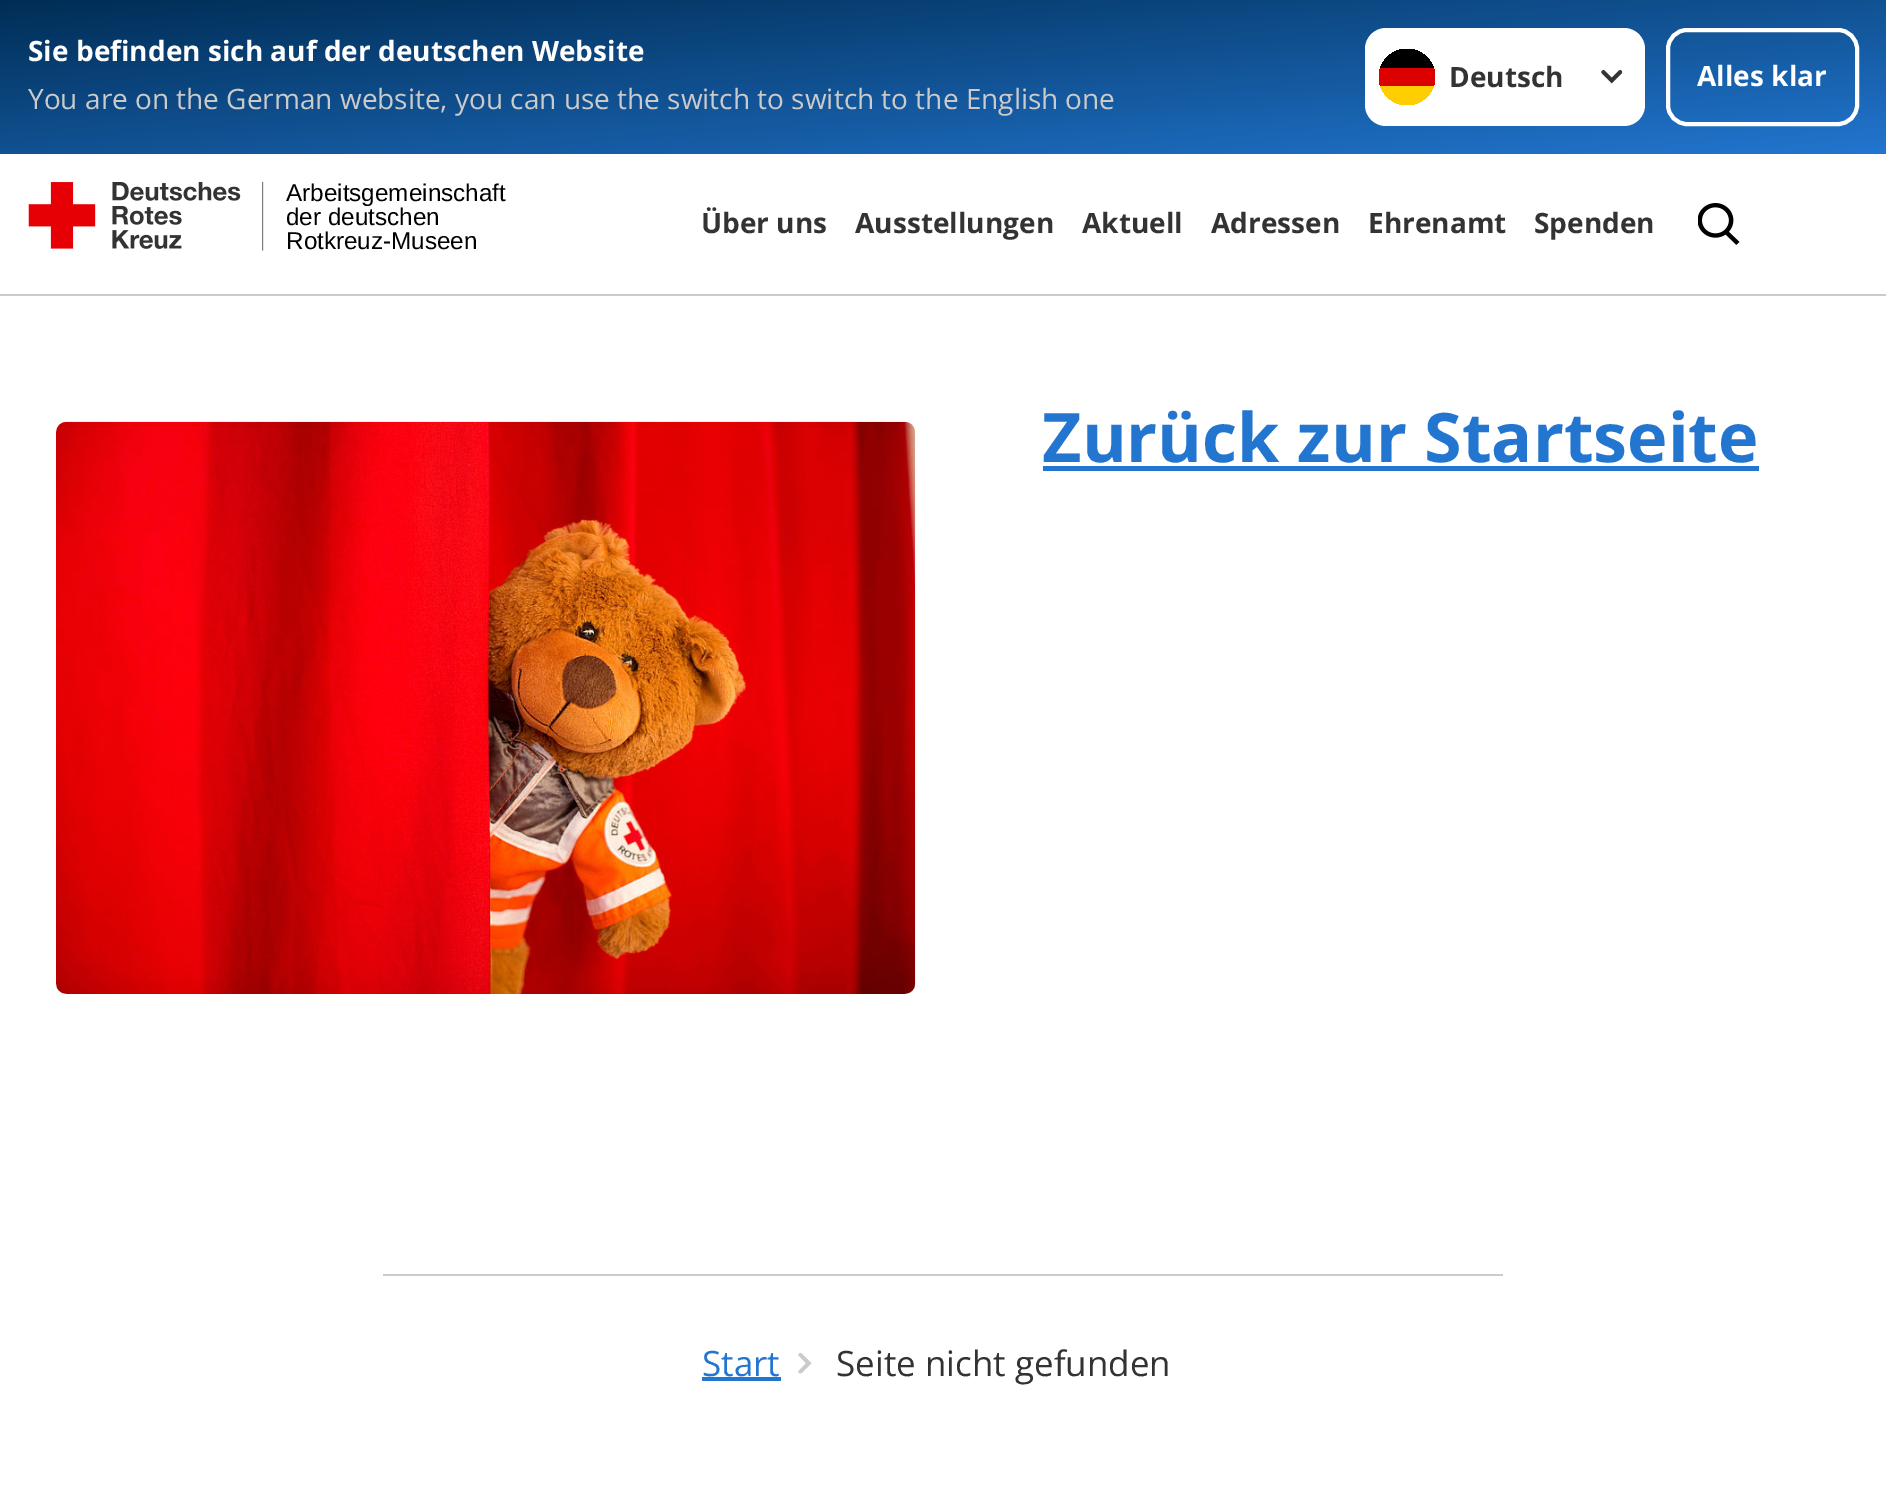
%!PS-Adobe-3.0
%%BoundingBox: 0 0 1886 1489
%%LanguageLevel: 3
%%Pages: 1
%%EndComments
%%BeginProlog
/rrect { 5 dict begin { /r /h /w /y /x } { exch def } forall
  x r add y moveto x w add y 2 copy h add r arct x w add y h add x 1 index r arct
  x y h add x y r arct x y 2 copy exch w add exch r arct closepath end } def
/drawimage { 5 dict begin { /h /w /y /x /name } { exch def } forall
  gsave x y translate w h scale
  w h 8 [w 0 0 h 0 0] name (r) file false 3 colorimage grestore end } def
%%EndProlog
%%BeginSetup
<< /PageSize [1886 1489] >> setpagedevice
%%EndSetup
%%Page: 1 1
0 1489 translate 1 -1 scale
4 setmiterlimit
1 setgray
0 0 1886 1489 rectfill
gsave newpath 0 0 moveto 1886 0 lineto 1886 154 lineto 0 154 lineto closepath clip newpath
<< /ShadingType 2 /ColorSpace /DeviceRGB /Coords [931 -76 956 230] /Extend [true true] /Function << /FunctionType 2 /Domain [0 1] /C0 [0 0.176 0.333] /C1 [0.133 0.463 0.816] /N 1 >> >> shfill grestore
1365 28 280 98 21 rrect fill
gsave
1379 49 56 56 28 rrect clip newpath
1 0.808 0 setrgbcolor
1380 86 54 19 rectfill
0 setgray
1380 49 54 19 rectfill
0.867 0 0 setrgbcolor
1379 68 56 18 rectfill
grestore
(images/1.raw) 1601 70 21 14 drawimage
4 setlinewidth
1668 30 189 94 19 rrect stroke
0.796 setgray
0 294 1886 2 rectfill
(images/2.raw) 28 182 236 69 drawimage
(images/3.raw) 1698 203 42 42 drawimage
(images/4.raw) 56 421 860 573 drawimage
0.133 0.463 0.816 setrgbcolor
1043 466 716 5 rectfill
0.796 setgray
383 1274 1120 2 rectfill
0.133 0.463 0.816 setrgbcolor
702 1377 79 4 rectfill
(images/5.raw) 798 1353 14 21 drawimage
/OpenSans-Bold [28 0 0 -28 0 0] selectfont
1 setgray
28 61 moveto (Sie befinden sich auf der deutschen Website) show
/OpenSans-Regular [28 0 0 -28 0 0] selectfont
0.796 setgray
28 109 moveto (You are on the German website, you can use the switch to switch to the English one) show
/OpenSans-Bold [28 0 0 -28 0 0] selectfont
0.2 setgray
1449 87 moveto (Deutsch) show
1 setgray
1697 86 moveto (Alles klar) show
/LiberationSans-Regular [24.25 0 0 -24.25 0 0] selectfont
0 setgray
286 201 moveto (Arbeitsgemeinschaft) show
286 225 moveto (der deutschen) show
286 249 moveto (Rotkreuz-Museen) show
/OpenSans-Bold [28 0 0 -28 0 0] selectfont
0.2 setgray
701 233 moveto (Über uns) show
855 233 moveto (Ausstellungen) show
1082 233 moveto (Aktuell) show
1211 233 moveto (Adressen) show
1368 233 moveto (Ehrenamt) show
1534 233 moveto (Spenden) show
/OpenSans-Bold [68.25 0 0 -68.25 0 0] selectfont
0.133 0.463 0.816 setrgbcolor
1042 462 moveto (Zurück zur Startseite) show
/OpenSans-Regular [35 0 0 -35 0 0] selectfont
702 1376 moveto (Start) show
0.2 setgray
836 1376 moveto (Seite nicht gefunden) show
showpage
%%EOF
